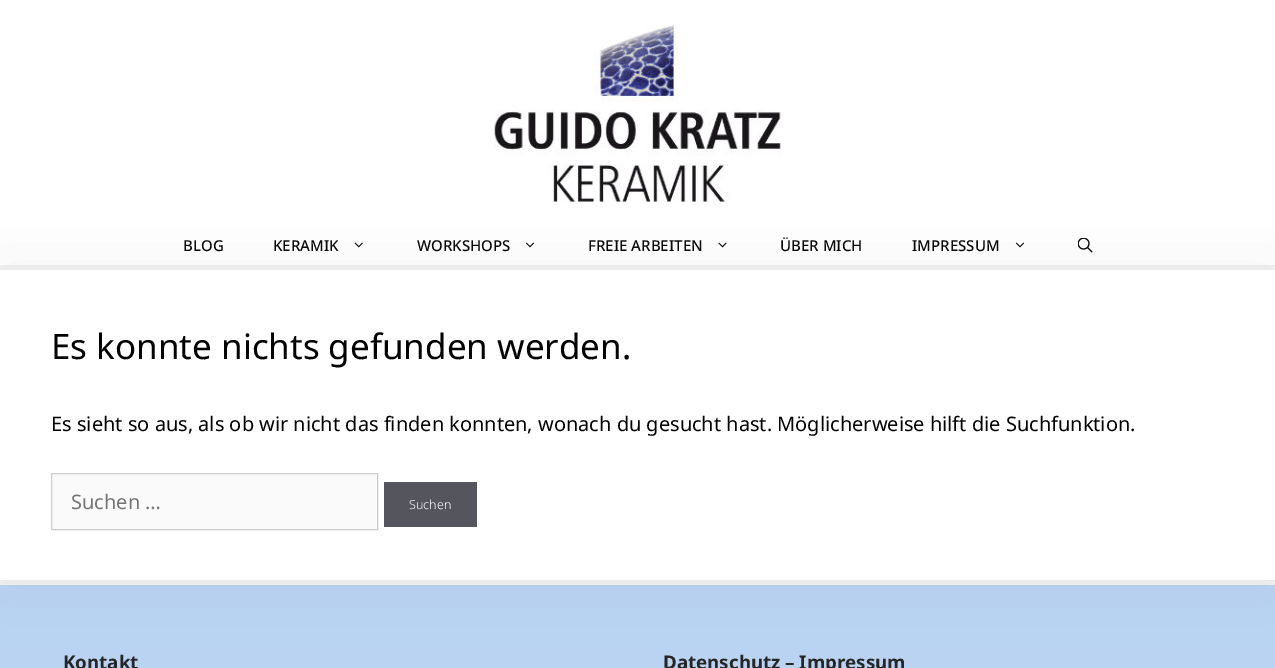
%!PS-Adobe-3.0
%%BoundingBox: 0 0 1275 668
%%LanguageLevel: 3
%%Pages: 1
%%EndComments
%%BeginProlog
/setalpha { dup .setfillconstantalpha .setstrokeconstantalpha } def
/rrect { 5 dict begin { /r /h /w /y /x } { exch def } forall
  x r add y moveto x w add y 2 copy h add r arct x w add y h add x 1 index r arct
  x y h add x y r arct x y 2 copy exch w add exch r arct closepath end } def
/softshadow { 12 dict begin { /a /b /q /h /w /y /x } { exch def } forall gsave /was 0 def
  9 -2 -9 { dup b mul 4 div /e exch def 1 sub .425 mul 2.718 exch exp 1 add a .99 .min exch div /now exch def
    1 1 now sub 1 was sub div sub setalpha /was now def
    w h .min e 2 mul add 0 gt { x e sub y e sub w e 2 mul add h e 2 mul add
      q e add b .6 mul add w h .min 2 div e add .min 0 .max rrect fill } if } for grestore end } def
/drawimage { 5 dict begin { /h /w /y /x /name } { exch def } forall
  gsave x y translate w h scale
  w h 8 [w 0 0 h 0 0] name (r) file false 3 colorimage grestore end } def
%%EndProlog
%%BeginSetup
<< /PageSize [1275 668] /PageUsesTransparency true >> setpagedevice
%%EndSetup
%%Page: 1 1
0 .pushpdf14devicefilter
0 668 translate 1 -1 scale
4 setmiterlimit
0.949 setgray
0 0 1275 668 rectfill
1 setgray
0 228 1275 37 rectfill
0 setgray
0 270 1275 310 0 37.5 0.05 softshadow
1 setgray
0 0 1275 228 rectfill
(images/1.raw) 494 25 287 177 drawimage
(images/2.raw) 354 242 9 6 drawimage
(images/3.raw) 525 242 10 6 drawimage
(images/4.raw) 718 242 9 6 drawimage
(images/3.raw) 1015 242 10 6 drawimage
(images/5.raw) 1078 238 15 15 drawimage
0 270 1275 310 rectfill
0.98 setgray
newpath 51.5 473.5 moveto 377.5 473.5 lineto 377.5 529.5 lineto 51.5 529.5 lineto closepath gsave fill grestore
0.8 setgray
stroke
0.333 0.333 0.369 setrgbcolor
384 482 93 45 rectfill
0.23 setalpha
0 0.431 0.961 setrgbcolor
0 585 1275 83 rectfill
/NotoSans-Medium [15 0 0 -15 0 0] selectfont
1 setalpha
0.039 setgray
183 251 moveto (BLOG) show
273 251 moveto (KERAMIK) show
417 251 moveto (WORKSHOPS) show
588 251 moveto (FREIE ARBEITEN) show
780 251 moveto (ÜBER MICH) show
912 251 moveto (IMPRESSUM) show
/NotoSans-Regular [35 0 0 -35 0 0] selectfont
0.008 setgray
51 359 moveto (Es konnte nichts gefunden werden.) show
/NotoSans-Regular [20 0 0 -20 0 0] selectfont
51 431 moveto (Es sieht so aus, als ob wir nicht das finden konnten, wonach du gesucht hast. Möglicherweise hilft die Suchfunktion.) show
0.459 setgray
71 509 moveto (Suchen …) show
/NotoSans-Light [12.5 0 0 -12.5 0 0] selectfont
1 setgray
409 509 moveto (Suchen) show
/NotoSans-Bold [18.75 0 0 -18.75 0 0] selectfont
0.149 setgray
63 669 moveto (Kontakt) show
663 669 moveto (Datenschutz – Impressum) show
.poppdf14devicefilter showpage
%%EOF
